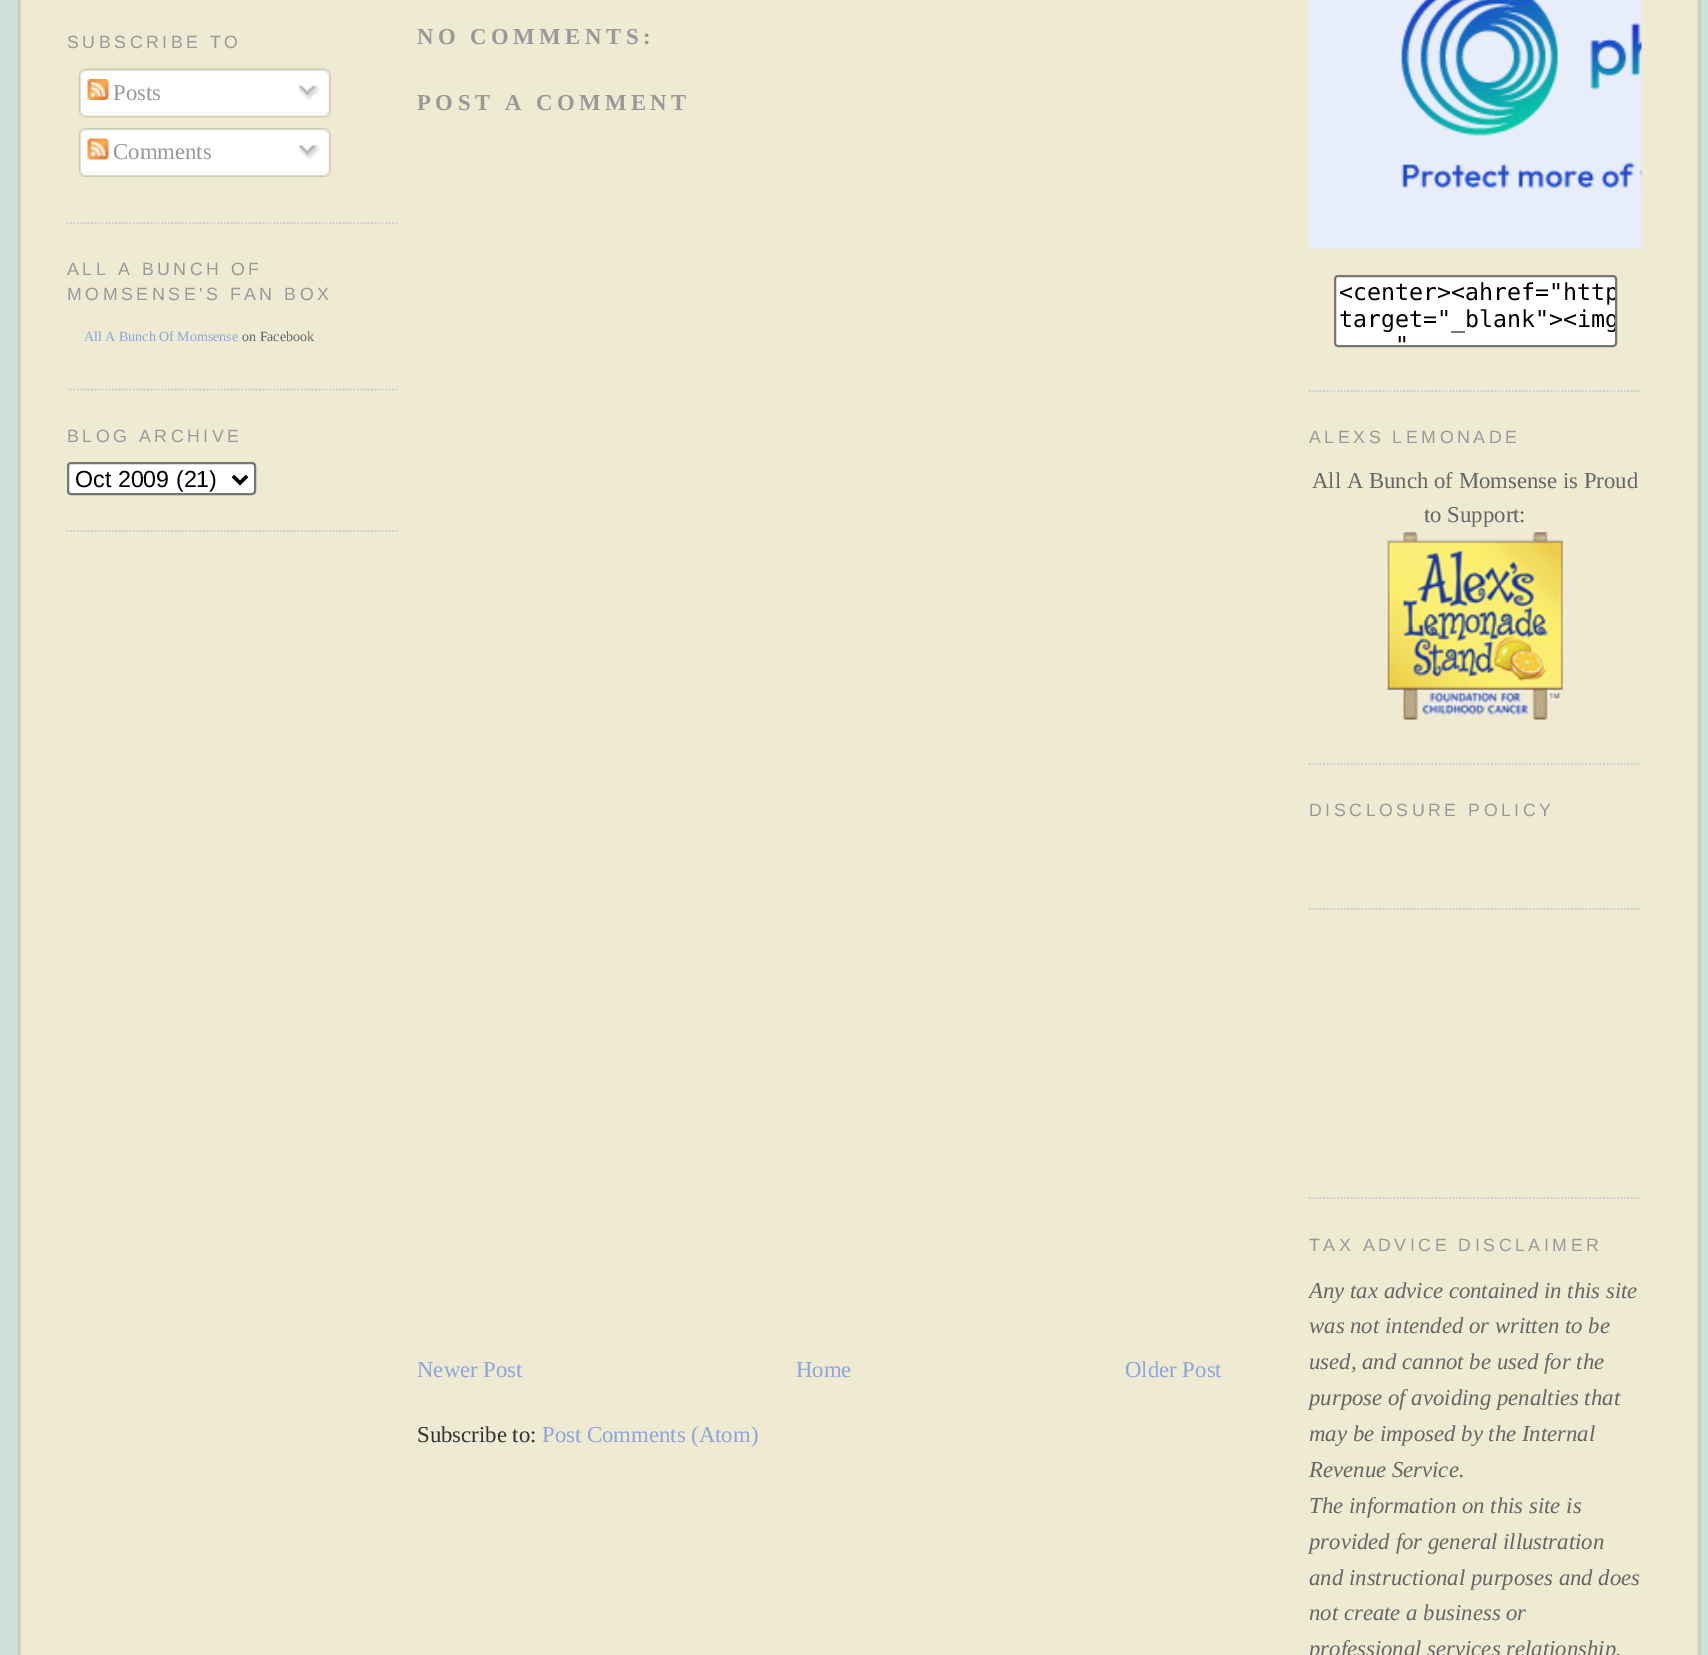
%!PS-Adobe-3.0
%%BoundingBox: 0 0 1708 1655
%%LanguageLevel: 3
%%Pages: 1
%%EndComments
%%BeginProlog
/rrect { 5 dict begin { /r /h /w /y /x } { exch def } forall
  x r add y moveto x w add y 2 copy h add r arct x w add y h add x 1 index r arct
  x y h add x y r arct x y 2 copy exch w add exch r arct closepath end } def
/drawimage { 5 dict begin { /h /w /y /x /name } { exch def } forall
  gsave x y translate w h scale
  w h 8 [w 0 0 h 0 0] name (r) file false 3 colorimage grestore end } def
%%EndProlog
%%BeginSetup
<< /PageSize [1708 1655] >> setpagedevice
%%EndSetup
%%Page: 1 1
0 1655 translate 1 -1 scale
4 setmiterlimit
1 setgray
0 0 1708 1655 rectfill
(images/1.raw) 0 0 1708 1655 drawimage
0.8 setgray
1.8 setlinewidth
[1.75 1.75] 0 setdash
newpath 66.5 223 moveto 399 223 lineto stroke
(images/2.raw) 78 68 253 45 drawimage
(images/3.raw) 87 79 22 21 drawimage
(images/4.raw) 297 84 23 16 drawimage
(images/5.raw) 79 112 252 6 drawimage
(images/6.raw) 78 128 253 44 drawimage
(images/7.raw) 87 138 22 22 drawimage
(images/8.raw) 297 144 23 16 drawimage
(images/9.raw) 79 171 252 6 drawimage
gsave
67 0 332 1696 rectclip
newpath 66.5 389.5 moveto 399 389.5 lineto stroke
grestore
newpath 66.5 531 moveto 399 531 lineto stroke
1 setgray
68 463 187 31 3 rrect gsave fill grestore
0.463 setgray
2 setlinewidth
[] 0 setdash
stroke
0 setgray
3.5 setlinewidth
newpath 233 476 moveto 240 483 lineto 247 476 lineto stroke
0.8 setgray
1.8 setlinewidth
[1.75 1.75] 0 setdash
newpath 1309 391 moveto 1641.5 391 lineto stroke
(images/10.raw) 1309 0 333 249 drawimage
1 setgray
1335 276 281 70 3 rrect gsave fill grestore
0.463 setgray
2 setlinewidth
[] 0 setdash
stroke
0.8 setgray
1.8 setlinewidth
[1.75 1.75] 0 setdash
newpath 1309 764 moveto 1641.5 764 lineto stroke
(images/11.raw) 1387 532 176 188 drawimage
newpath 1309 909 moveto 1641.5 909 lineto stroke
newpath 1309 1198 moveto 1641.5 1198 lineto stroke
/LiberationSans-Regular [17.75 0 0 -17.75 0 0] selectfont
0.6 setgray
67 48 moveto 3.55 0 (SUBSCRIBE TO) ashow
/LiberationSerif-Regular [22.75 0 0 -22.75 0 0] selectfont
113 100 moveto (Posts) show
113 159 moveto (Comments) show
/LiberationSans-Regular [17.75 0 0 -17.75 0 0] selectfont
67 275 moveto 3.55 0 (ALL A BUNCH OF) ashow
67 300 moveto 3.55 0 (MOMSENSE'S FAN BOX) ashow
/LiberationSerif-Regular [14 0 0 -14 0 0] selectfont
0.553 0.647 0.875 setrgbcolor
84 341 moveto (All A Bunch Of Momsense) show
0.4 setgray
242 341 moveto (on Facebook) show
/LiberationSans-Regular [17.75 0 0 -17.75 0 0] selectfont
0.6 setgray
67 442 moveto 3.55 0 (BLOG ARCHIVE) ashow
/LiberationSans-Regular [23.25 0 0 -23.25 0 0] selectfont
0 setgray
75 487 moveto (Oct 2009 \(21\)) show
/LiberationSerif-Bold [22.75 0 0 -22.75 0 0] selectfont
0.6 setgray
417 44 moveto 4.5 0 (NO COMMENTS:) ashow
417 110 moveto 4.5 0 (POST A COMMENT) ashow
/LiberationSerif-Regular [22.75 0 0 -22.75 0 0] selectfont
0.553 0.647 0.875 setrgbcolor
417 1377 moveto (Newer Post) show
796 1377 moveto (Home) show
1125 1377 moveto (Older Post) show
0.2 setgray
417 1442 moveto (Subscribe to:) show
0.553 0.647 0.875 setrgbcolor
542 1442 moveto (Post Comments \(Atom\)) show
/DejaVuSansMono-Regular [23.25 0 0 -23.25 0 0] selectfont
0 setgray
1339 300 moveto (<center><a) show
gsave
1335 277 280 68 rectclip
1479 300 moveto (href="http) show
1339 327 moveto (target="_blank"><img) show
grestore
1395 353 moveto (") show
/LiberationSans-Regular [17.75 0 0 -17.75 0 0] selectfont
0.6 setgray
1309 443 moveto 3.55 0 (ALEXS LEMONADE) ashow
/LiberationSerif-Regular [22.75 0 0 -22.75 0 0] selectfont
0.4 setgray
1312 488 moveto (All A Bunch of Momsense is Proud) show
1424 522 moveto (to Support:) show
/LiberationSans-Regular [17.75 0 0 -17.75 0 0] selectfont
0.6 setgray
1309 816 moveto 3.55 0 (DISCLOSURE POLICY) ashow
1309 1251 moveto 3.55 0 (TAX ADVICE DISCLAIMER) ashow
/LiberationSerif-Italic [22.75 0 0 -22.75 0 0] selectfont
0.4 setgray
1309 1298 moveto (Any tax advice contained in this site) show
1309 1333 moveto (was not intended or written to be) show
1309 1369 moveto (used, and cannot be used for the) show
1309 1405 moveto (purpose of avoiding penalties that) show
1309 1441 moveto (may be imposed by the Internal) show
1309 1477 moveto (Revenue Service.) show
1309 1513 moveto (The information on this site is) show
1309 1549 moveto (provided for general illustration) show
1309 1585 moveto (and instructional purposes and does) show
1309 1620 moveto (not create a business or) show
1309 1656 moveto (professional services relationship.) show
showpage
%%EOF
